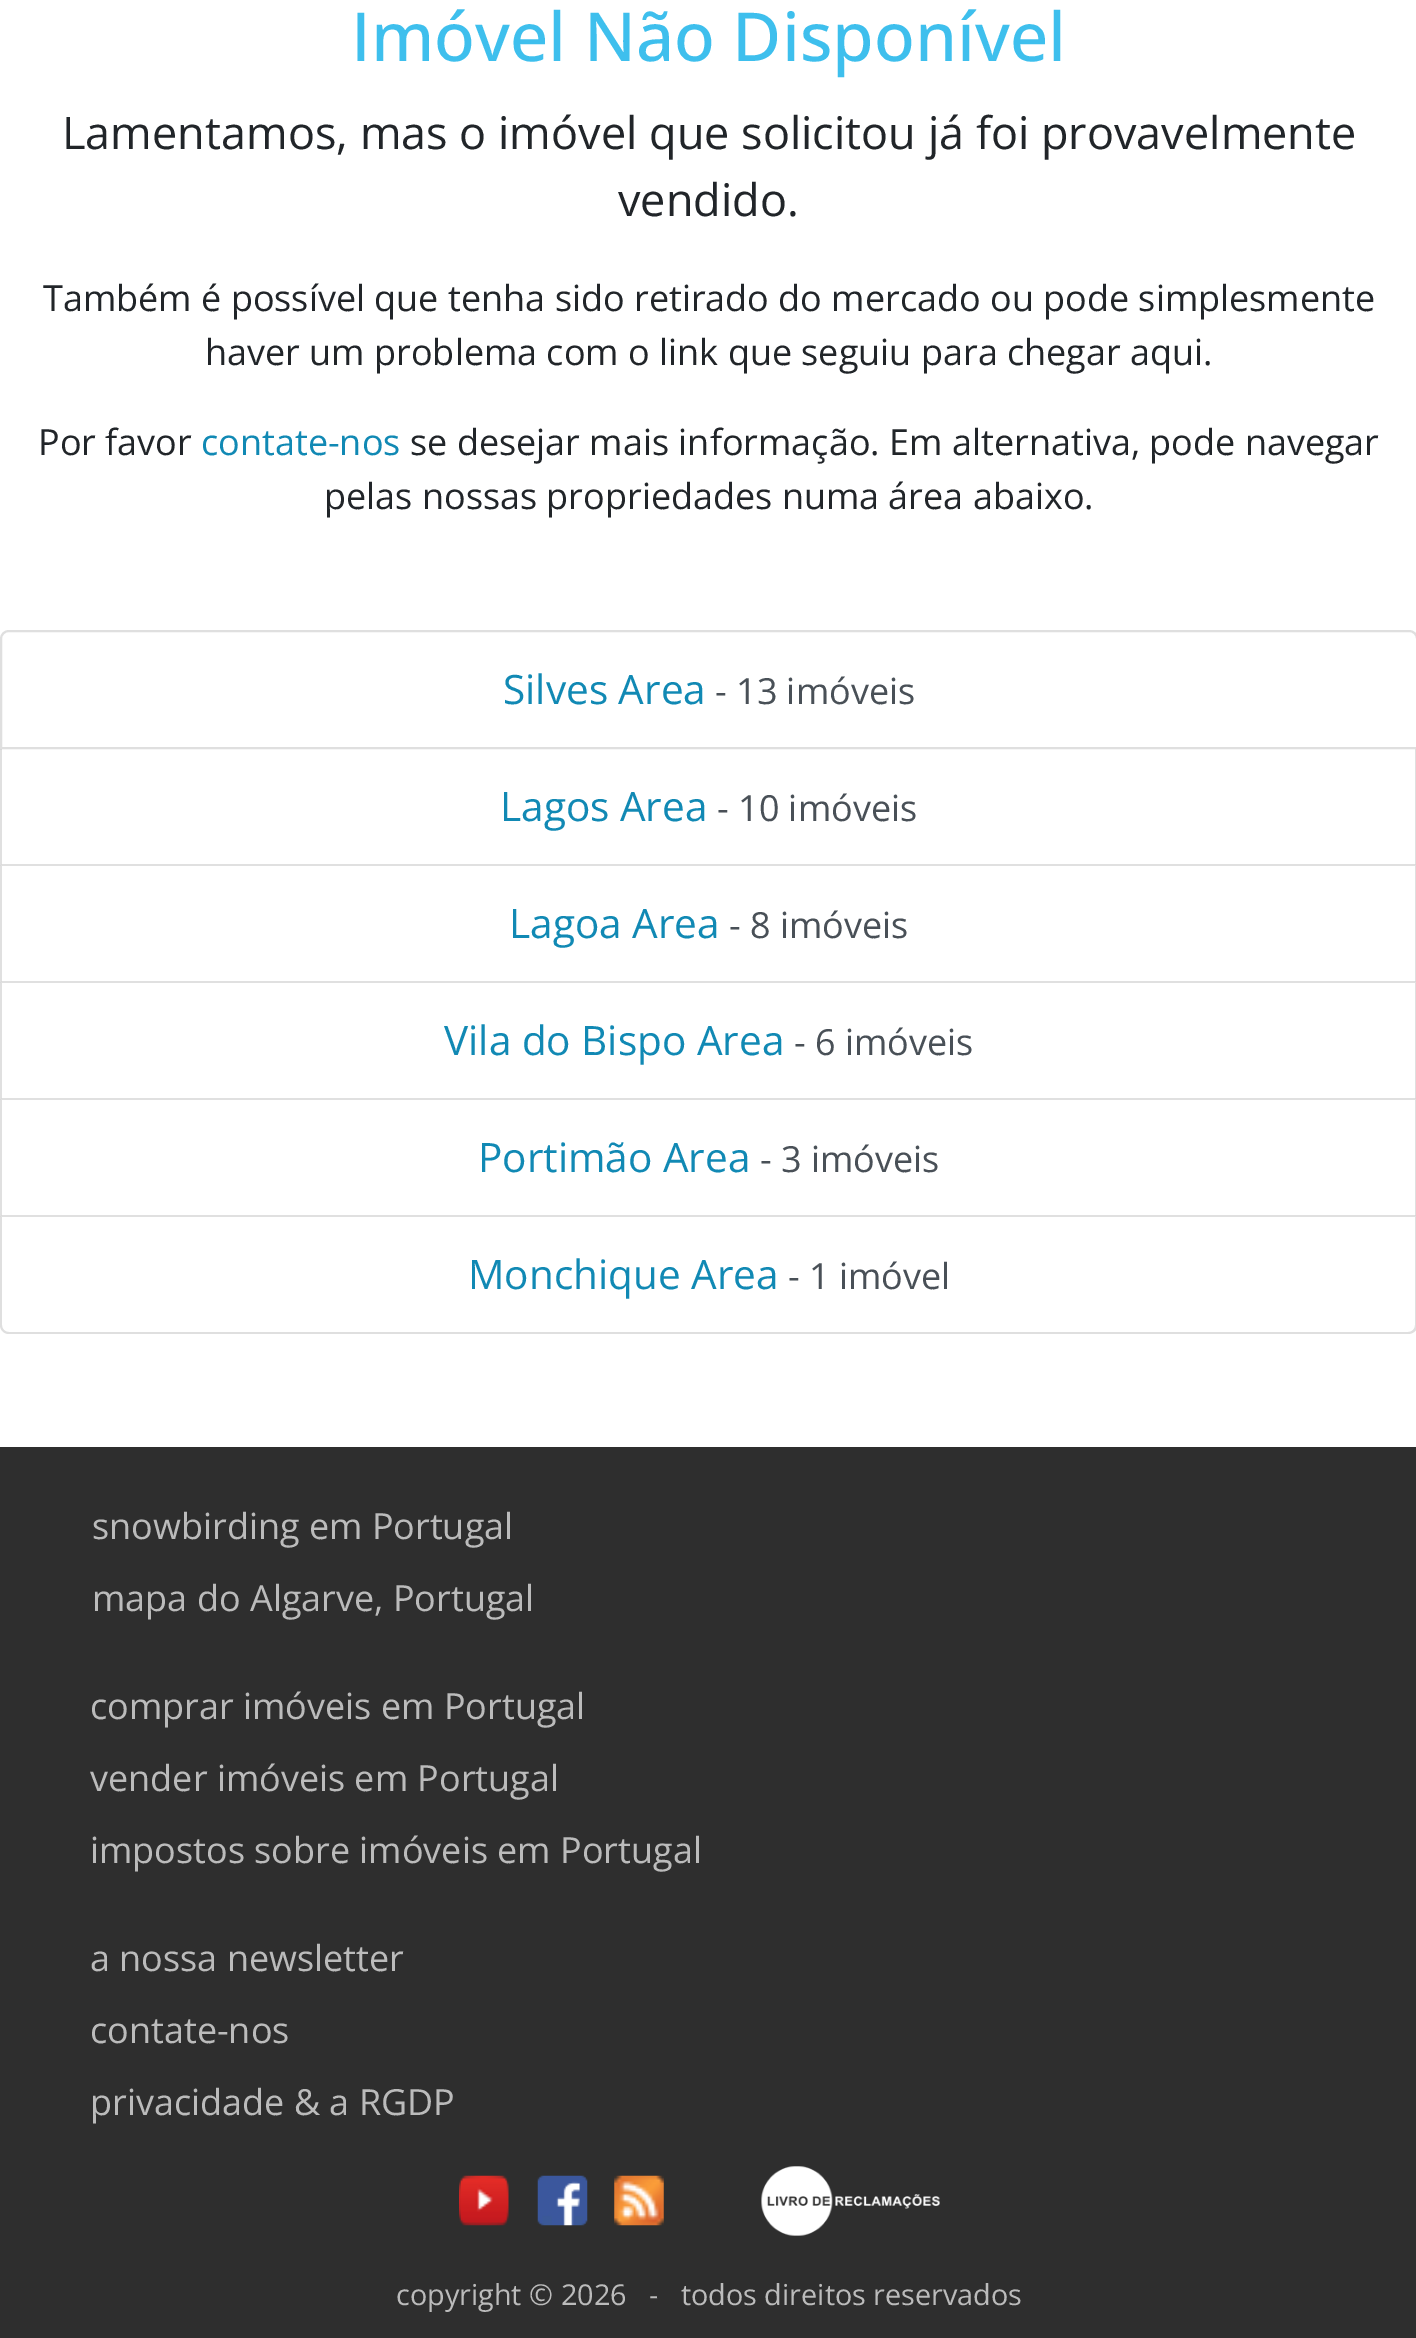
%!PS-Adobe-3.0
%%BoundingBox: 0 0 1416 2338
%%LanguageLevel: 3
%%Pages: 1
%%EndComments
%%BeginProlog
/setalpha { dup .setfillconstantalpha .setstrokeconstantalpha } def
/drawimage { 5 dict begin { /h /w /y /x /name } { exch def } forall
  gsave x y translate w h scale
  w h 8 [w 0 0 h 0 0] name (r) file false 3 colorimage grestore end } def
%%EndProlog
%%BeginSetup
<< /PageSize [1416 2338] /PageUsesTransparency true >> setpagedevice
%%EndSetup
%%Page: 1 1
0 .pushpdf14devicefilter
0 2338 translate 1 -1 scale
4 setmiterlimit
1 setgray
0 0 1416 2338 rectfill
0.875 setgray
2 setlinewidth
newpath 9 631 moveto 1409 631 lineto 1413.5 631 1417 634.5 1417 639 curveto 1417 748 lineto 1 748 lineto 1 639 lineto 1 634.5 4.5 631 9 631 curveto closepath stroke
newpath 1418 749 moveto 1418 866 lineto 1415 864 lineto 1415 749 lineto closepath fill
0.12 setalpha
0 setgray
newpath 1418 866 moveto 0 866 lineto 2 864 lineto 1415 864 lineto closepath fill
newpath 0 866 moveto 0 749 lineto 2 749 lineto 2 864 lineto closepath fill
1 setalpha
0.875 setgray
newpath 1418 866 moveto 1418 983 lineto 1415 981 lineto 1415 866 lineto closepath fill
0.12 setalpha
0 setgray
newpath 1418 983 moveto 0 983 lineto 2 981 lineto 1415 981 lineto closepath fill
newpath 0 983 moveto 0 866 lineto 2 866 lineto 2 981 lineto closepath fill
1 setalpha
0.875 setgray
newpath 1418 983 moveto 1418 1100 lineto 1415 1098 lineto 1415 983 lineto closepath fill
0.12 setalpha
0 setgray
newpath 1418 1100 moveto 0 1100 lineto 2 1098 lineto 1415 1098 lineto closepath fill
newpath 0 1100 moveto 0 983 lineto 2 983 lineto 2 1098 lineto closepath fill
1 setalpha
0.875 setgray
newpath 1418 1100 moveto 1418 1217 lineto 1415 1215 lineto 1415 1100 lineto closepath fill
0.12 setalpha
0 setgray
newpath 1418 1217 moveto 0 1217 lineto 2 1215 lineto 1415 1215 lineto closepath fill
newpath 0 1217 moveto 0 1100 lineto 2 1100 lineto 2 1215 lineto closepath fill
1 setalpha
0.875 setgray
newpath 0 1217 moveto 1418 1217 lineto 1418 1325 lineto 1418 1330 1413 1334 1408 1334 curveto 9 1334 lineto 4 1334 0 1330 0 1325 curveto closepath 2 1217 moveto 1415 1217 lineto 1415 1325 lineto 1415 1329 1412 1332 1408 1332 curveto 9 1332 lineto 5 1332 2 1329 2 1325 curveto closepath eofill
0.18 setgray
0 1447 1416 891 rectfill
(images/1.raw) 459 2175 50 51 drawimage
(images/2.raw) 537 2175 51 51 drawimage
(images/3.raw) 614 2175 50 51 drawimage
(images/4.raw) 761 2166 179 70 drawimage
/OpenSans-Medium [67.5 0 0 -67.5 0 0] selectfont
0.243 0.749 0.929 setrgbcolor
351 61 moveto (Imóvel Não Disponível) show
/OpenSans-Regular [45 0 0 -45 0 0] selectfont
0.129 0.145 0.161 setrgbcolor
62 149 moveto (Lamentamos, mas o imóvel que solicitou já foi provavelmente) show
618 216 moveto (vendido.) show
/OpenSans-Regular [36 0 0 -36 0 0] selectfont
43 311 moveto (Também é possível que tenha sido retirado do mercado ou pode simplesmente) show
205 365 moveto (haver um problema com o link que seguiu para chegar aqui.) show
38 455 moveto (Por favor) show
0.067 0.537 0.706 setrgbcolor
201 455 moveto (contate-nos) show
0.129 0.145 0.161 setrgbcolor
410 455 moveto (se desejar mais informação. Em alternativa, pode navegar) show
324 509 moveto (pelas nossas propriedades numa área abaixo.) show
/OpenSans-Regular [40.5 0 0 -40.5 0 0] selectfont
0.067 0.537 0.706 setrgbcolor
503 704 moveto (Silves Area) show
/OpenSans-Regular [36 0 0 -36 0 0] selectfont
0.286 0.314 0.341 setrgbcolor
715 704 moveto (- 13 imóveis) show
/OpenSans-Regular [40.5 0 0 -40.5 0 0] selectfont
0.067 0.537 0.706 setrgbcolor
500 821 moveto (Lagos Area) show
/OpenSans-Regular [36 0 0 -36 0 0] selectfont
0.286 0.314 0.341 setrgbcolor
717 821 moveto (- 10 imóveis) show
/OpenSans-Regular [40.5 0 0 -40.5 0 0] selectfont
0.067 0.537 0.706 setrgbcolor
509 938 moveto (Lagoa Area) show
/OpenSans-Regular [36 0 0 -36 0 0] selectfont
0.286 0.314 0.341 setrgbcolor
729 938 moveto (- 8 imóveis) show
/OpenSans-Regular [40.5 0 0 -40.5 0 0] selectfont
0.067 0.537 0.706 setrgbcolor
444 1055 moveto (Vila do Bispo Area) show
/OpenSans-Regular [36 0 0 -36 0 0] selectfont
0.286 0.314 0.341 setrgbcolor
794 1055 moveto (- 6 imóveis) show
/OpenSans-Regular [40.5 0 0 -40.5 0 0] selectfont
0.067 0.537 0.706 setrgbcolor
478 1172 moveto (Portimão Area) show
/OpenSans-Regular [36 0 0 -36 0 0] selectfont
0.286 0.314 0.341 setrgbcolor
760 1172 moveto (- 3 imóveis) show
/OpenSans-Regular [40.5 0 0 -40.5 0 0] selectfont
0.067 0.537 0.706 setrgbcolor
468 1289 moveto (Monchique Area) show
/OpenSans-Regular [36 0 0 -36 0 0] selectfont
0.286 0.314 0.341 setrgbcolor
788 1289 moveto (- 1 imóvel) show
0.733 setgray
92 1539 moveto (snowbirding em Portugal) show
92 1611 moveto (mapa do Algarve, Portugal) show
90 1719 moveto (comprar imóveis em Portugal) show
90 1791 moveto (vender imóveis em Portugal) show
90 1863 moveto (impostos sobre imóveis em Portugal) show
90 1971 moveto (a nossa newsletter) show
90 2043 moveto (contate-nos) show
90 2115 moveto (privacidade & a RGDP) show
/OpenSans-Regular [28.8 0 0 -28.8 0 0] selectfont
396 2305 moveto (copyright © 2026   -   todos direitos reservados) show
.poppdf14devicefilter showpage
%%EOF
